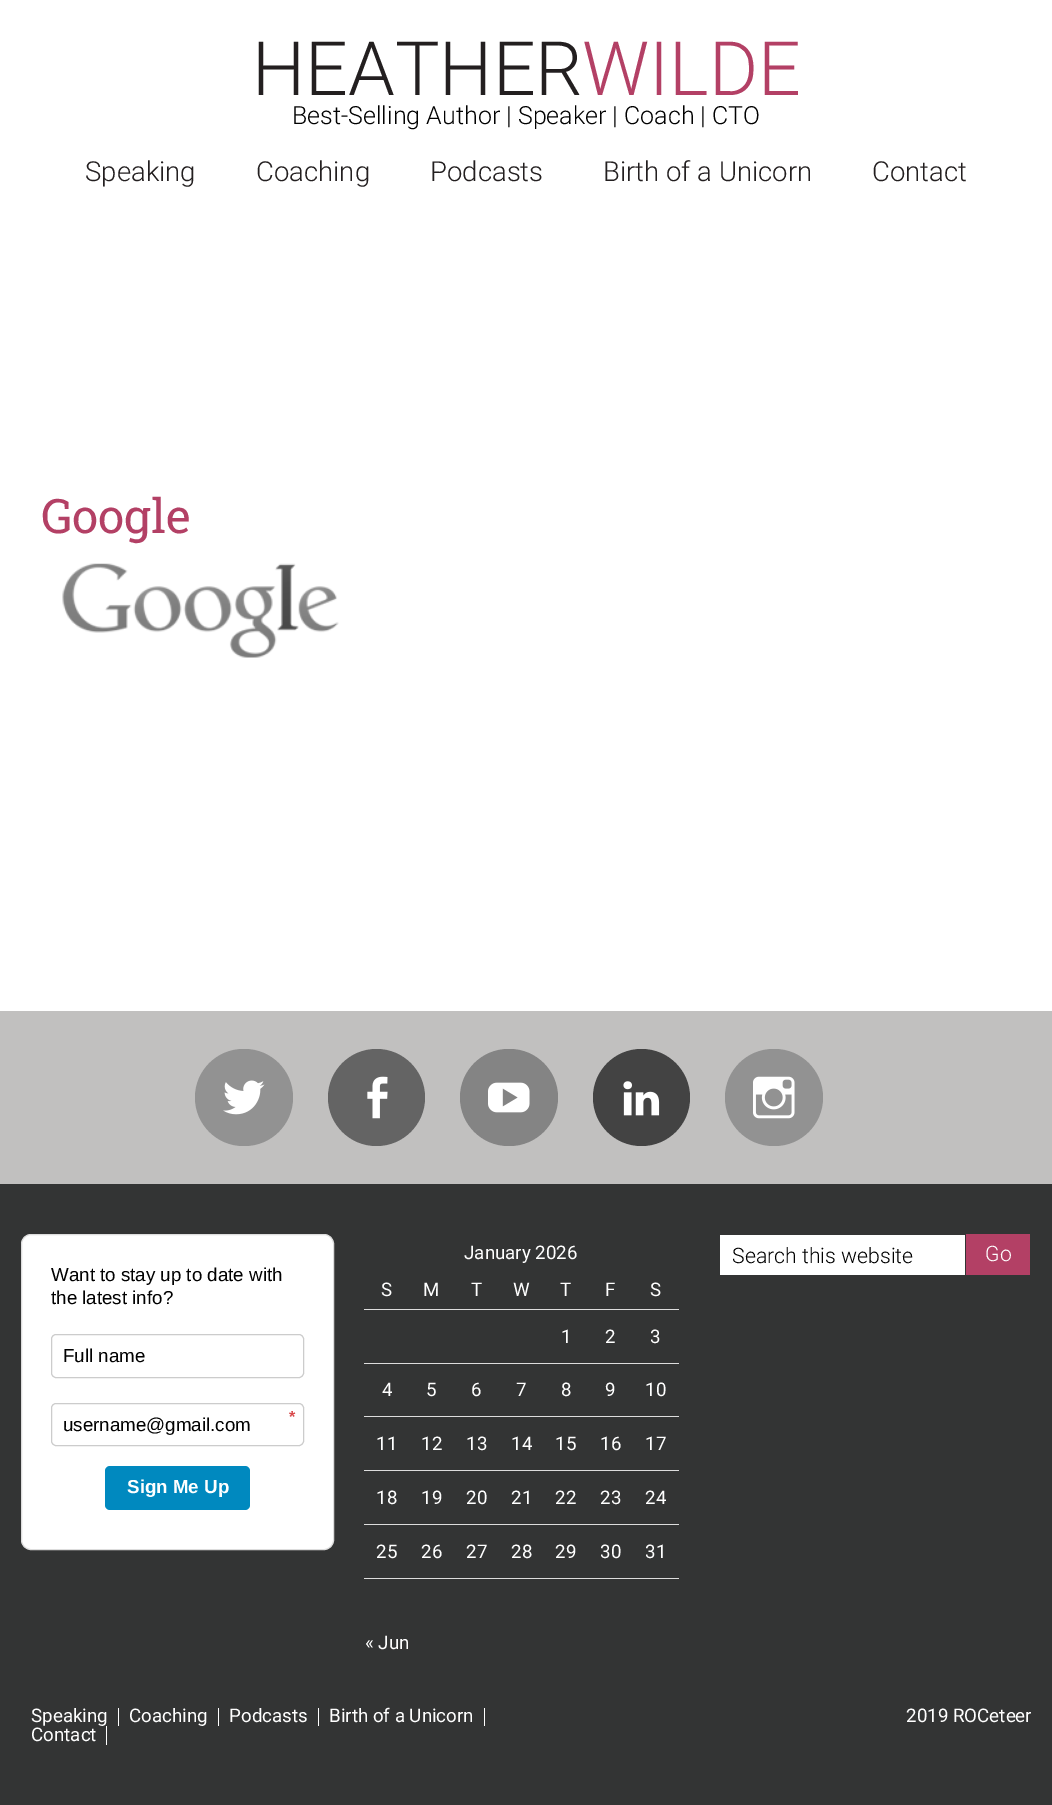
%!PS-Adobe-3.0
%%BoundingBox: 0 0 1052 1805
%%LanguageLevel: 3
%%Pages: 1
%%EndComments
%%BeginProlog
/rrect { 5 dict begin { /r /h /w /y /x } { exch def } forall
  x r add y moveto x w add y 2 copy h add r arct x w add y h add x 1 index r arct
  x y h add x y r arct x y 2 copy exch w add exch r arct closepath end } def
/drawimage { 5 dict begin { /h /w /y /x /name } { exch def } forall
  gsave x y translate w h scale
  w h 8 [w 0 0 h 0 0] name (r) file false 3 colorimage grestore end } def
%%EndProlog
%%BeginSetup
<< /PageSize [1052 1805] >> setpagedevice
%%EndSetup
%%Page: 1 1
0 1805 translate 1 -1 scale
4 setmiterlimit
0.2 0.204 0.204 setrgbcolor
0 0 1052 1805 rectfill
1 setgray
0 0 1052 1011 rectfill
(images/1.raw) 62 563 277 95 drawimage
0.757 0.753 0.749 setrgbcolor
0 1011 1052 173 rectfill
0.573 setgray
195 1049 98 97 48.5 rrect fill
(images/2.raw) 223 1080 42 35 drawimage
0.392 setgray
newpath 376.5 1097.5 48.5 0 360 arc closepath fill
(images/3.raw) 367 1076 21 43 drawimage
0.518 setgray
460 1049 98 97 48.5 rrect fill
(images/4.raw) 488 1082 42 31 drawimage
0.263 setgray
newpath 641.5 1097.5 48.5 0 360 arc closepath fill
(images/5.raw) 623 1081 37 35 drawimage
0.573 setgray
725 1049 98 97 48.5 rrect fill
(images/6.raw) 753 1076 42 43 drawimage
0.867 setgray
364 1578 315 1 rectfill
364 1309 315 1 rectfill
364 1363 315 1 rectfill
364 1416 315 1 rectfill
364 1470 315 1 rectfill
364 1524 315 1 rectfill
1 setgray
720 1235 245 40 rectfill
0.702 0.251 0.396 setrgbcolor
966 1234 64 41 rectfill
1 setgray
21.5 1234.5 312 315 9.5 rrect gsave fill grestore
0.867 setgray
stroke
0.8 setgray
51.5 1334.5 252 43 4.5 rrect stroke
51.5 1403.5 252 42 4.5 rrect stroke
0 0.537 0.749 setrgbcolor
105 1466 145 44 5 rrect fill
1 setgray
118 1708 1 18 rectfill
218 1708 1 18 rectfill
318 1708 1 18 rectfill
484 1708 1 18 rectfill
106 1726 1 19 rectfill
/Roboto-Light [75 0 0 -75 0 0] selectfont
0.137 0.122 0.125 setrgbcolor
252 95 moveto (HEATHER) show
0.702 0.251 0.396 setrgbcolor
582 95 moveto (WILDE) show
/Roboto-Light [25 0 0 -25 0 0] selectfont
0.004 setgray
292 124 moveto (Best-Selling Author | Speaker | Coach | CTO) show
/Roboto-Light [27.5 0 0 -27.5 0 0] selectfont
0.137 0.122 0.125 setrgbcolor
85 181 moveto (Speaking) show
256 181 moveto (Coaching) show
430 181 moveto (Podcasts) show
603 181 moveto (Birth of a Unicorn) show
872 181 moveto (Contact) show
/RobotoSlab-Regular [47.5 0 0 -47.5 0 0] selectfont
0.702 0.251 0.396 setrgbcolor
41 533 moveto (Google) show
/Roboto-Regular [18.75 0 0 -18.75 0 0] selectfont
1 setgray
464 1259 moveto (January 2026) show
381 1296 moveto (S) show
423 1296 moveto (M) show
471 1296 moveto (T) show
513 1296 moveto (W) show
560 1296 moveto (T) show
605 1296 moveto (F) show
650 1296 moveto (S) show
561 1343 moveto (1) show
605 1343 moveto (2) show
650 1343 moveto (3) show
382 1396 moveto (4) show
426 1396 moveto (5) show
471 1396 moveto (6) show
516 1396 moveto (7) show
561 1396 moveto (8) show
605 1396 moveto (9) show
645 1396 moveto (10) show
376 1450 moveto (11) show
421 1450 moveto (12) show
466 1450 moveto (13) show
511 1450 moveto (14) show
555 1450 moveto (15) show
600 1450 moveto (16) show
645 1450 moveto (17) show
376 1504 moveto (18) show
421 1504 moveto (19) show
466 1504 moveto (20) show
511 1504 moveto (21) show
555 1504 moveto (22) show
600 1504 moveto (23) show
645 1504 moveto (24) show
376 1558 moveto (25) show
421 1558 moveto (26) show
466 1558 moveto (27) show
511 1558 moveto (28) show
555 1558 moveto (29) show
600 1558 moveto (30) show
645 1558 moveto (31) show
365 1649 moveto (« Jun) show
/Roboto-Light [21.25 0 0 -21.25 0 0] selectfont
0.004 setgray
732 1263 moveto (Search this website) show
1 setgray
985 1261 moveto (Go) show
/LiberationSans-Regular [18.75 0 0 -18.75 0 0] selectfont
0.004 setgray
51 1281 moveto (Want to stay up to date with) show
51 1304 moveto (the latest info?) show
63 1362 moveto (Full name) show
/LiberationSans-Bold [16 0 0 -16 0 0] selectfont
0.851 0.294 0.302 setrgbcolor
289 1422 moveto (*) show
/LiberationSans-Regular [18.75 0 0 -18.75 0 0] selectfont
0.004 setgray
63 1431 moveto (username@gmail.com) show
/LiberationSans-Bold [18.75 0 0 -18.75 0 0] selectfont
1 setgray
127 1493 moveto (Sign Me Up) show
/Roboto-Regular [18.75 0 0 -18.75 0 0] selectfont
31 1722 moveto (Speaking) show
129 1722 moveto (Coaching) show
229 1722 moveto (Podcasts) show
329 1722 moveto (Birth of a Unicorn) show
31 1741 moveto (Contact) show
906 1722 moveto (2019 ROCeteer) show
showpage
%%EOF
